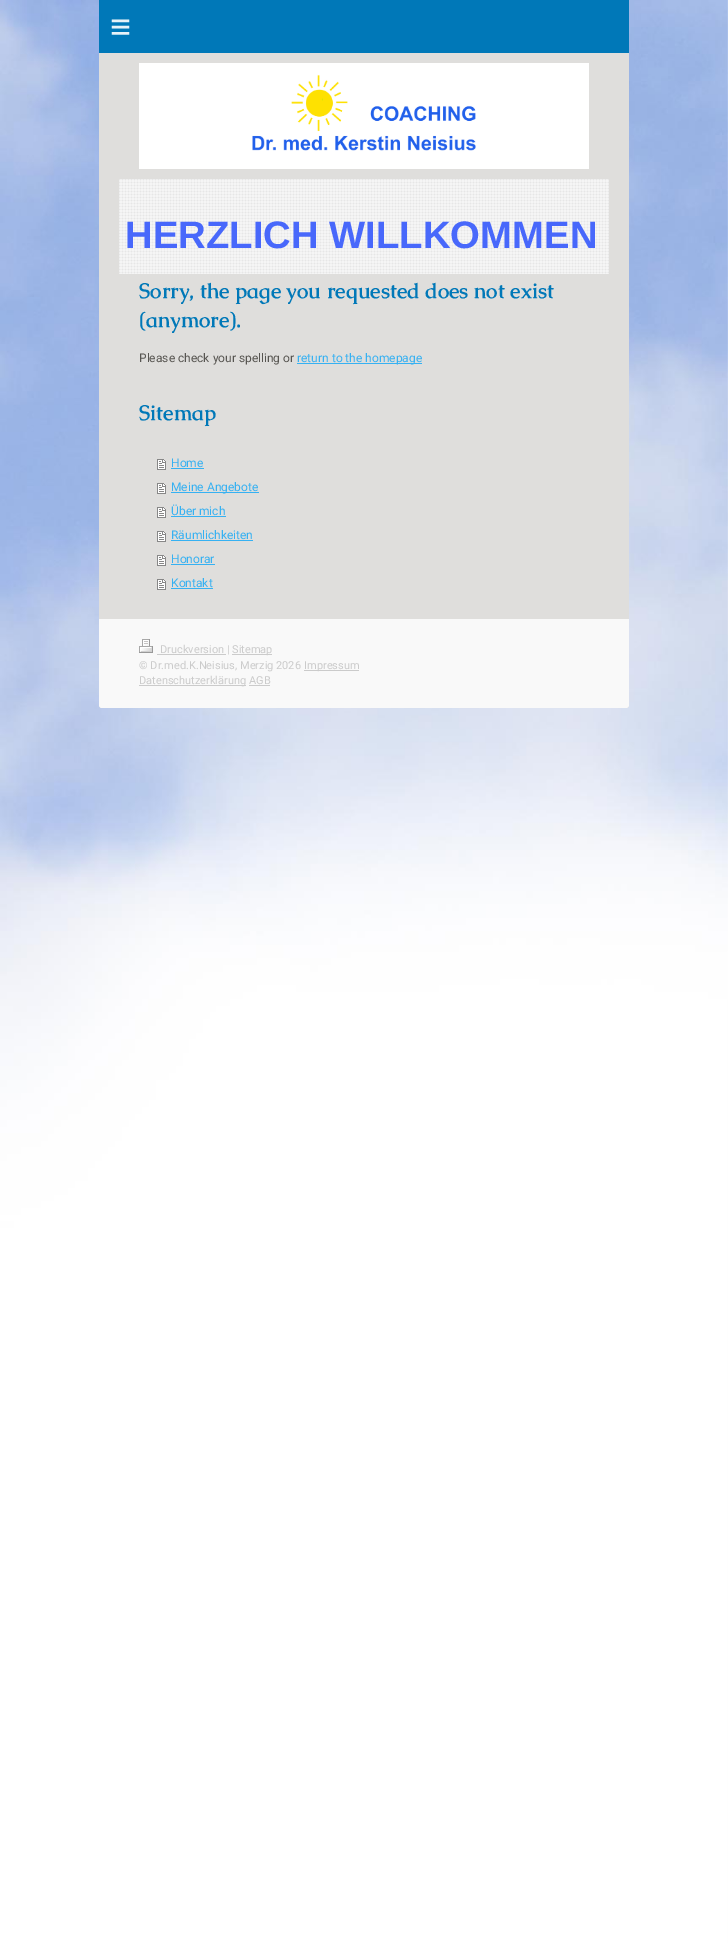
%!PS-Adobe-3.0
%%BoundingBox: 0 0 728 1943
%%LanguageLevel: 3
%%Pages: 1
%%EndComments
%%BeginProlog
/drawimage { 5 dict begin { /h /w /y /x /name } { exch def } forall
  gsave x y translate w h scale
  w h 8 [w 0 0 h 0 0] name (r) file false 3 colorimage grestore end } def
%%EndProlog
%%BeginSetup
<< /PageSize [728 1943] >> setpagedevice
%%EndSetup
%%Page: 1 1
0 1943 translate 1 -1 scale
4 setmiterlimit
1 setgray
0 0 728 1943 rectfill
(images/1.raw) 0 0 728 1943 drawimage
0.875 0.871 0.863 setrgbcolor
newpath 99 0 moveto 629 0 lineto 629 705 lineto 629 706.5 627.5 708 626 708 curveto 102 708 lineto 100.5 708 99 706.5 99 705 curveto closepath fill
0 0.471 0.722 setrgbcolor
99 0 530 53 rectfill
(images/2.raw) 139 63 450 106 drawimage
1 setgray
119 179 490 95 rectfill
(images/3.raw) 119 179 490 95 drawimage
0.212 0.694 0.949 setrgbcolor
297 363 125 1 rectfill
(images/4.raw) 157 459 9 11 drawimage
171 468 33 1 rectfill
(images/4.raw) 157 483 9 11 drawimage
171 492 88 1 rectfill
(images/4.raw) 157 507 9 11 drawimage
171 516 55 1 rectfill
(images/4.raw) 157 531 9 11 drawimage
171 540 82 1 rectfill
(images/4.raw) 157 555 9 11 drawimage
171 564 44 1 rectfill
(images/4.raw) 157 579 9 11 drawimage
171 588 42 1 rectfill
0.976 setgray
newpath 99 619 moveto 629 619 lineto 629 705 lineto 629 706.5 627.5 708 626 708 curveto 102 708 lineto 100.5 708 99 706.5 99 705 curveto closepath fill
(images/5.raw) 139 639 14 14 drawimage
0.796 setgray
157 654 69 1 rectfill
232 654 40 1 rectfill
304 670 55 1 rectfill
139 685 107 1 rectfill
249 685 21 1 rectfill
/LiberationSans-Regular [36 0 0 -36 0 0] selectfont
0.902 0.949 0.973 setrgbcolor
110 39 moveto 10 0 (≡) ashow
/LiberationSans-Bold [38.3 0 0 -38.3 0 0] selectfont
0.282 0.408 0.984 setrgbcolor
125 248 moveto (HERZLICH WILLKOMMEN) show
/Caudex-Bold [21 0 0 -21 0 0] selectfont
0 0.471 0.722 setrgbcolor
139 298 moveto (Sorry, the page you requested does not exist) show
139 327 moveto (\(anymore\).) show
/Roboto-Regular [12 0 0 -12 0 0] selectfont
0.341 0.333 0.318 setrgbcolor
139 362 moveto (Please check your spelling or) show
0.212 0.694 0.949 setrgbcolor
297 362 moveto (return to the homepage) show
/Caudex-Bold [21 0 0 -21 0 0] selectfont
0 0.471 0.722 setrgbcolor
139 420 moveto (Sitemap) show
/Roboto-Regular [12 0 0 -12 0 0] selectfont
0.212 0.694 0.949 setrgbcolor
171 467 moveto (Home) show
171 491 moveto (Meine Angebote) show
171 515 moveto (Über mich) show
171 539 moveto (Räumlichkeiten) show
171 563 moveto (Honorar) show
171 587 moveto (Kontakt) show
/Roboto-Regular [11 0 0 -11 0 0] selectfont
0.796 setgray
160 653 moveto (Druckversion |) show
232 653 moveto (Sitemap) show
139 669 moveto (© Dr.med.K.Neisius, Merzig 2026) show
304 669 moveto (Impressum) show
139 684 moveto (Datenschutzerklärung AGB) show
showpage
%%EOF
